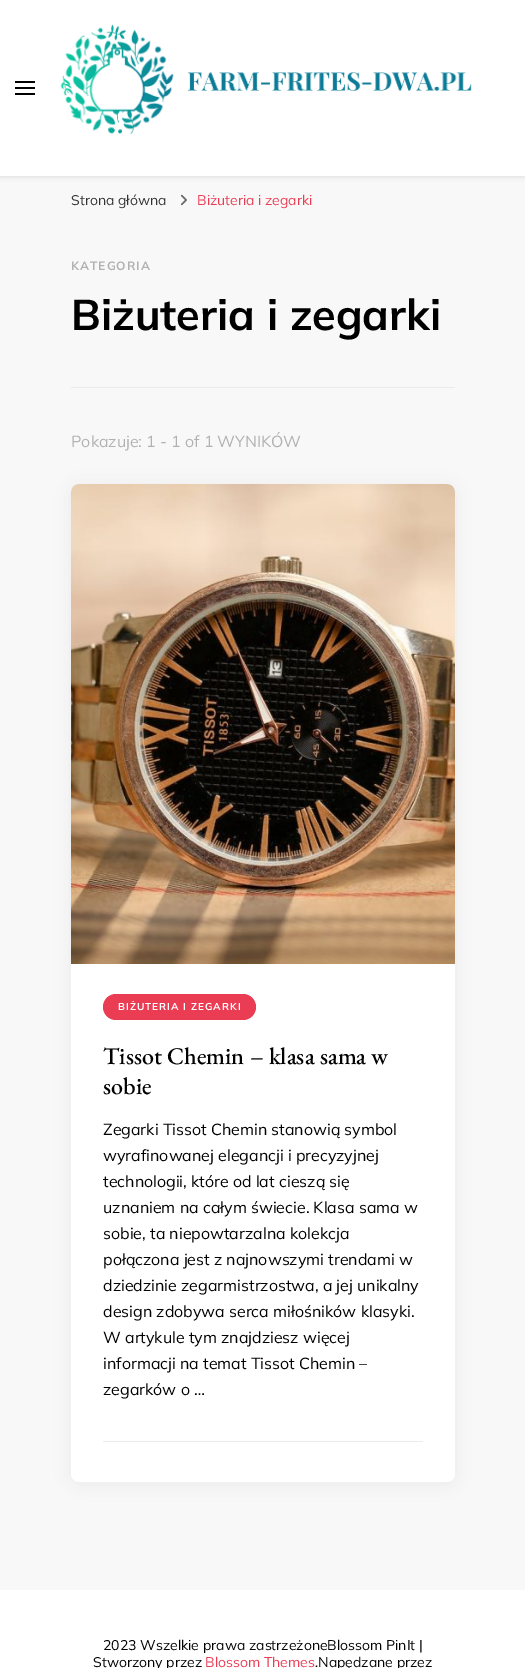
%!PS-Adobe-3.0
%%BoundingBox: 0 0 525 1668
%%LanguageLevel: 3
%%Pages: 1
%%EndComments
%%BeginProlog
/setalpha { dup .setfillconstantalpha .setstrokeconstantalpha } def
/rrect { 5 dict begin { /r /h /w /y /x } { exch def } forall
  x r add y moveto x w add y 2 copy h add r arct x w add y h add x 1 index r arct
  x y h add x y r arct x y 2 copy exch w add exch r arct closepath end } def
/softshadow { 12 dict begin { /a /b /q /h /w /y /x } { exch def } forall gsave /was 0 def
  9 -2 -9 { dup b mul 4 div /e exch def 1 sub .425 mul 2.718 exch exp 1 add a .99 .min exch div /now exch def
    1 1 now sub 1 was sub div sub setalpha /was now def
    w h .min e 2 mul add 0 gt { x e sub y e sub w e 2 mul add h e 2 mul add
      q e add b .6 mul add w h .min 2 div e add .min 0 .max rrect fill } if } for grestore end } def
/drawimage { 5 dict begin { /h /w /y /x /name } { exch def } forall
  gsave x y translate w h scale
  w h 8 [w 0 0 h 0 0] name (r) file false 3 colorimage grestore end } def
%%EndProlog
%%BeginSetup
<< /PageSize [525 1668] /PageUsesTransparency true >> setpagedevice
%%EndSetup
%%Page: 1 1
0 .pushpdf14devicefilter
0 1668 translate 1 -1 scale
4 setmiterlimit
0.973 setgray
0 0 525 1668 rectfill
0 setgray
0 1 525 176 0 2.5 0.1 softshadow
1 setgray
0 0 525 176 rectfill
0 setgray
15 81 20 2 rectfill
15 87 20 2 rectfill
15 93 20 2 rectfill
(images/1.raw) 60 24 412 111 drawimage
(images/2.raw) 180 194 7 12 drawimage
0.922 setgray
71 387 384 1 rectfill
0 setgray
71 486 384 998 8 10 0.05 softshadow
1 setgray
71 484 384 998 8 rrect fill
(images/3.raw) 71 484 384 480 drawimage
0.918 0.235 0.325 setrgbcolor
103 994 153 26 13 rrect fill
0.922 setgray
103 1441 320 1 rectfill
1 setgray
0 1590 525 78 rectfill
/Mulish-Regular [14 0 0 -14 0 0] selectfont
0.2 setgray
71 205 moveto (Strona główna) show
0.918 0.235 0.325 setrgbcolor
197 205 moveto (Biżuteria i zegarki) show
/Mulish-Bold [12 0 0 -12 0 0] selectfont
0.694 0.694 0.698 setrgbcolor
71 270 moveto 1 0 (KATEGORIA) ashow
/Mulish-Bold [43 0 0 -43 0 0] selectfont
0 setgray
71 330 moveto (Biżuteria i zegarki) show
/Mulish-Regular [16 0 0 -16 0 0] selectfont
0.694 0.694 0.698 setrgbcolor
71 447 moveto (Pokazuje: 1 - 1 of 1 WYNIKÓW) show
/Mulish-Bold [10 0 0 -10 0 0] selectfont
1 setgray
118 1010 moveto 1 0 (BIŻUTERIA I ZEGARKI) ashow
/EBGaramond-Medium [24 0 0 -24 0 0] selectfont
0 setgray
103 1064 moveto (Tissot Chemin – klasa sama w) show
103 1094 moveto (sobie) show
/Mulish-Regular [16 0 0 -16 0 0] selectfont
103 1135 moveto (Zegarki Tissot Chemin stanowią symbol) show
103 1161 moveto (wyrafinowanej elegancji i precyzyjnej) show
103 1187 moveto (technologii, które od lat cieszą się) show
103 1213 moveto (uznaniem na całym świecie. Klasa sama w) show
103 1239 moveto (sobie, ta niepowtarzalna kolekcja) show
103 1265 moveto (połączona jest z najnowszymi trendami w) show
103 1291 moveto (dziedzinie zegarmistrzostwa, a jej unikalny) show
103 1317 moveto (design zdobywa serca miłośników klasyki.) show
103 1343 moveto (W artykule tym znajdziesz więcej) show
103 1369 moveto (informacji na temat Tissot Chemin –) show
103 1395 moveto (zegarków o …) show
/Mulish-Regular [14 0 0 -14 0 0] selectfont
103 1650 moveto (2023 Wszelkie prawa zastrzeżoneBlossom PinIt |) show
93 1667 moveto (Stworzony przez) show
0.918 0.235 0.325 setrgbcolor
205 1667 moveto (Blossom Themes) show
0 setgray
315 1667 moveto (.Napędzane przez) show
.poppdf14devicefilter showpage
%%EOF
